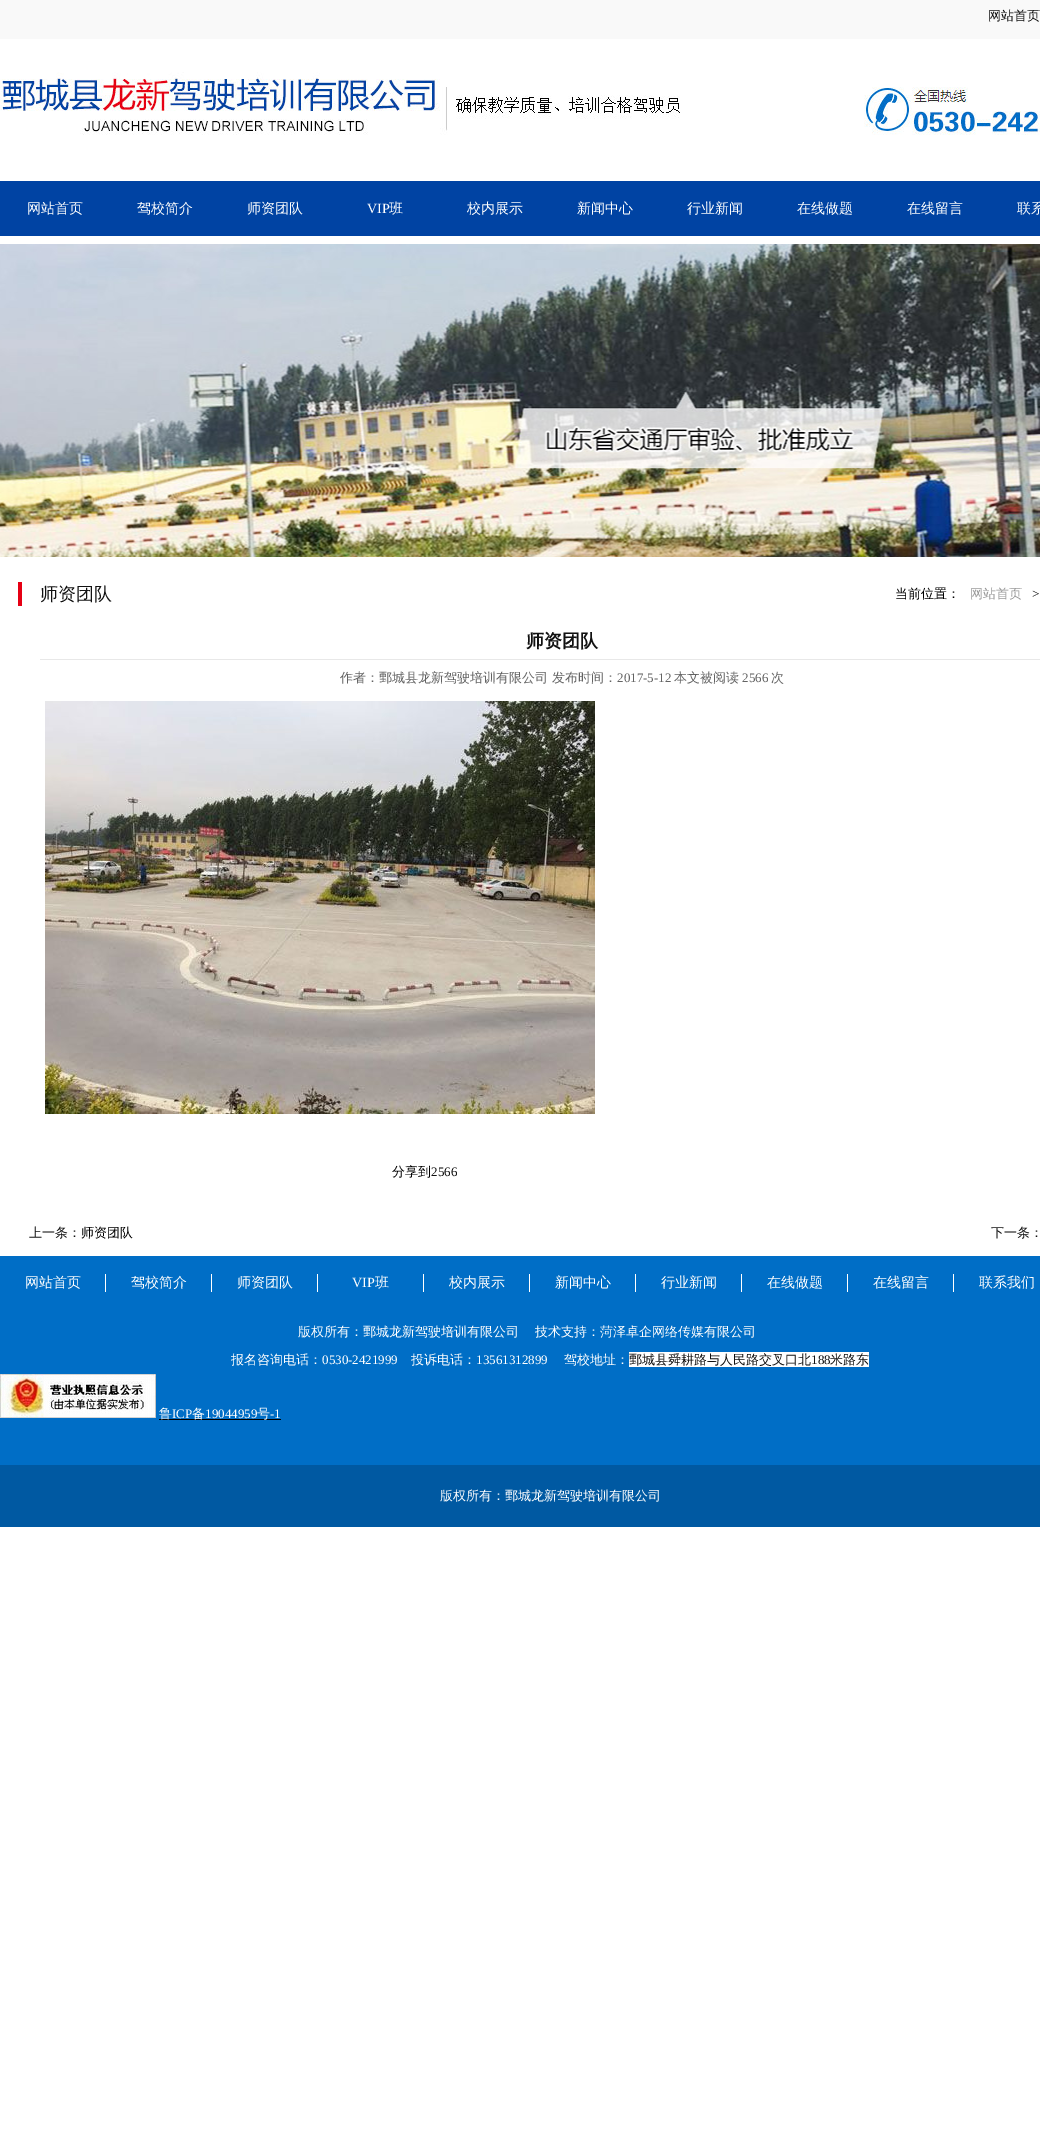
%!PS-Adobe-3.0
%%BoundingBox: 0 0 1040 2136
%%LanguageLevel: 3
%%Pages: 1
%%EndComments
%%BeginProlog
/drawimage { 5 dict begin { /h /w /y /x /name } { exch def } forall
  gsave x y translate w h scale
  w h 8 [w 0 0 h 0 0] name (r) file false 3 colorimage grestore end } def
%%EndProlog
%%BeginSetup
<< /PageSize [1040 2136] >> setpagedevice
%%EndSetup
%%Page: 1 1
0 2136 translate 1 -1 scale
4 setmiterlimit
1 setgray
0 0 1040 2136 rectfill
0.976 setgray
0 0 1040 39 rectfill
(images/1.raw) 0 72 1040 63 drawimage
0 0.263 0.639 setrgbcolor
0 181 1040 55 rectfill
(images/2.raw) 0 244 1040 313 drawimage
0.902 0 0.078 setrgbcolor
18 582 4 24 rectfill
0.91 setgray
40 659 1000 1 rectfill
(images/3.raw) 45 701 550 413 drawimage
0 0.431 0.776 setrgbcolor
0 1256 1040 209 rectfill
1 setgray
105 1274 1 18 rectfill
211 1274 1 18 rectfill
317 1274 1 18 rectfill
423 1274 1 18 rectfill
529 1274 1 18 rectfill
635 1274 1 18 rectfill
741 1274 1 18 rectfill
847 1274 1 18 rectfill
953 1274 1 18 rectfill
629 1352 240 15 rectfill
(images/4.raw) 0 1374 156 44 drawimage
0 setgray
159 1419 122 1 rectfill
0 0.349 0.635 setrgbcolor
0 1465 1040 62 rectfill
/WenQuanYiZenHei-Medium [13 0 0 -13 0 0] selectfont
0.067 setgray
988 20 moveto (网站首页) show
/WenQuanYiZenHei-Medium [14 0 0 -14 0 0] selectfont
1 setgray
27 213 moveto (网站首页) show
137 213 moveto (驾校简介) show
247 213 moveto (师资团队) show
/LiberationSerif-Regular [14 0 0 -14 0 0] selectfont
367 213 moveto (VIP) show
/WenQuanYiZenHei-Medium [14 0 0 -14 0 0] selectfont
389 213 moveto (班) show
467 213 moveto (校内展示) show
577 213 moveto (新闻中心) show
687 213 moveto (行业新闻) show
797 213 moveto (在线做题) show
907 213 moveto (在线留言) show
1017 213 moveto (联系) show
/WenQuanYiZenHei-Medium [18 0 0 -18 0 0] selectfont
0.067 setgray
40 600 moveto (师资团队) show
/WenQuanYiZenHei-Medium [13 0 0 -13 0 0] selectfont
0 setgray
895 598 moveto (当前位置：) show
0.6 setgray
970 598 moveto (网站首页) show
/LiberationSerif-Regular [13 0 0 -13 0 0] selectfont
0 setgray
1032 598 moveto (>) show
/WenQuanYiZenHei-Bold [18 0 0 -18 0 0] selectfont
0.067 setgray
526 647 moveto (师资团队) show
/WenQuanYiZenHei-Medium [13 0 0 -13 0 0] selectfont
0.388 setgray
340 682 moveto (作者：鄄城县龙新驾驶培训有限公司 发布时间：) show
/LiberationSerif-Regular [13 0 0 -13 0 0] selectfont
617 682 moveto (2017-5-12) show
/WenQuanYiZenHei-Medium [13 0 0 -13 0 0] selectfont
674 682 moveto (本文被阅读) show
/LiberationSerif-Regular [13 0 0 -13 0 0] selectfont
742 682 moveto (2566) show
/WenQuanYiZenHei-Medium [13 0 0 -13 0 0] selectfont
771 682 moveto (次) show
0 setgray
392 1176 moveto (分享到) show
/LiberationSerif-Regular [13 0 0 -13 0 0] selectfont
0.067 setgray
431 1176 moveto (2566) show
/WenQuanYiZenHei-Medium [13 0 0 -13 0 0] selectfont
29 1237 moveto (上一条：) show
0 setgray
81 1237 moveto (师资团队) show
0.067 setgray
991 1237 moveto (下一条：) show
/WenQuanYiZenHei-Medium [14 0 0 -14 0 0] selectfont
1 setgray
25 1287 moveto (网站首页) show
131 1287 moveto (驾校简介) show
237 1287 moveto (师资团队) show
/LiberationSerif-Regular [14 0 0 -14 0 0] selectfont
352 1287 moveto (VIP) show
/WenQuanYiZenHei-Medium [14 0 0 -14 0 0] selectfont
375 1287 moveto (班) show
449 1287 moveto (校内展示) show
555 1287 moveto (新闻中心) show
661 1287 moveto (行业新闻) show
767 1287 moveto (在线做题) show
873 1287 moveto (在线留言) show
979 1287 moveto (联系我们) show
/WenQuanYiZenHei-Medium [13 0 0 -13 0 0] selectfont
298 1336 moveto (版权所有：鄄城龙新驾驶培训有限公司) show
535 1336 moveto (技术支持：菏泽卓企网络传媒有限公司) show
231 1364 moveto (报名咨询电话：) show
/LiberationSerif-Regular [13 0 0 -13 0 0] selectfont
322 1364 moveto (0530-2421999) show
/WenQuanYiZenHei-Medium [13 0 0 -13 0 0] selectfont
411 1364 moveto (投诉电话：) show
/LiberationSerif-Regular [13 0 0 -13 0 0] selectfont
476 1364 moveto (13561312899) show
/WenQuanYiZenHei-Medium [13 0 0 -13 0 0] selectfont
564 1364 moveto (驾校地址：) show
0.067 setgray
629 1364 moveto (鄄城县舜耕路与人民路交叉口北) show
/LiberationSerif-Regular [13 0 0 -13 0 0] selectfont
811 1364 moveto (188) show
/WenQuanYiZenHei-Medium [13 0 0 -13 0 0] selectfont
830 1364 moveto (米路东) show
1 setgray
159 1418 moveto (鲁) show
/LiberationSerif-Regular [13 0 0 -13 0 0] selectfont
172 1418 moveto (ICP) show
/WenQuanYiZenHei-Medium [13 0 0 -13 0 0] selectfont
192 1418 moveto (备) show
/LiberationSerif-Regular [13 0 0 -13 0 0] selectfont
205 1418 moveto (19044959) show
/WenQuanYiZenHei-Medium [13 0 0 -13 0 0] selectfont
257 1418 moveto (号) show
/LiberationSerif-Regular [13 0 0 -13 0 0] selectfont
270 1418 moveto (-1) show
/WenQuanYiZenHei-Medium [13 0 0 -13 0 0] selectfont
440 1500 moveto (版权所有：鄄城龙新驾驶培训有限公司) show
showpage
%%EOF
